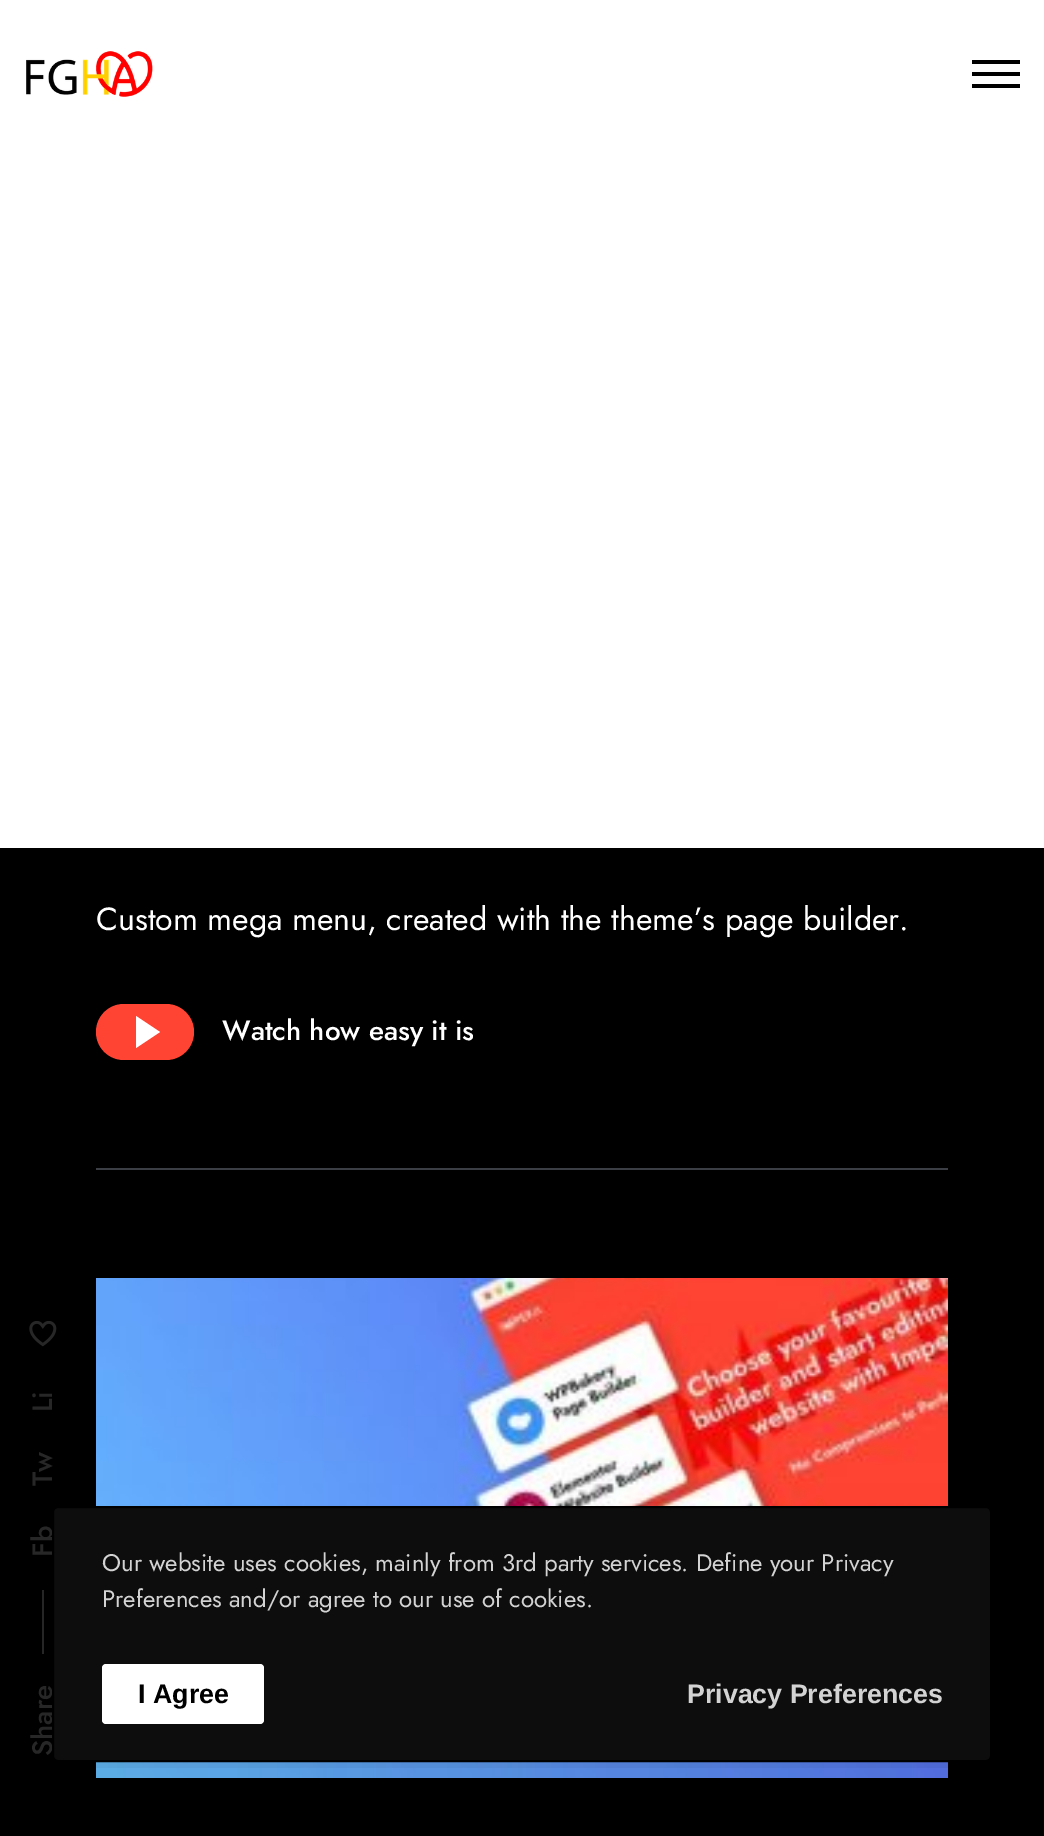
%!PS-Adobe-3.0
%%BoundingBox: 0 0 1044 1836
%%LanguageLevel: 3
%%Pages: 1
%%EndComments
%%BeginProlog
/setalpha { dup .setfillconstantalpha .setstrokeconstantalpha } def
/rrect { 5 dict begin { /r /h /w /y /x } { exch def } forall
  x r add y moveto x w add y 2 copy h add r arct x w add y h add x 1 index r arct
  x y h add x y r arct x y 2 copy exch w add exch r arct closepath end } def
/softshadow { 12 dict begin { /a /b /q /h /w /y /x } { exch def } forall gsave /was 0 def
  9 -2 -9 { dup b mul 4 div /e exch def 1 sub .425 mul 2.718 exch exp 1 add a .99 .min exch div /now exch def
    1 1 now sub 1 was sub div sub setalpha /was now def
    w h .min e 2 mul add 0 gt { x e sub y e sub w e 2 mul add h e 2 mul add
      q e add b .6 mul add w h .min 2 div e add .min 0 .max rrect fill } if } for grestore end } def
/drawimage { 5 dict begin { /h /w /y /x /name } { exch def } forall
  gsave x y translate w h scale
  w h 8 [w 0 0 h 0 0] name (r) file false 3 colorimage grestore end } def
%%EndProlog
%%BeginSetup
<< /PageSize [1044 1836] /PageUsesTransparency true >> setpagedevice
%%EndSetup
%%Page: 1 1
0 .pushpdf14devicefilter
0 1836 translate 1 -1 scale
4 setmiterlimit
1 setgray
0 0 1044 1836 rectfill
(images/1.raw) 26 51 127 46 drawimage
0 setgray
newpath 1020 84 moveto 1020 88 lineto 972 88 lineto 972 84 lineto closepath 1020 72 moveto 1020 76 lineto 972 76 lineto 972 72 lineto closepath 1020 60 moveto 1020 64 lineto 972 64 lineto 972 60 lineto closepath fill
0 848 1044 988 rectfill
1 0.267 0.2 setrgbcolor
96 1004 98 56 28 rrect fill
1 setgray
newpath 160 1032 moveto 136 1048 lineto 136 1016 lineto closepath fill
0.235 0.243 0.275 setrgbcolor
96 1168 852 2 rectfill
(images/2.raw) 96 1278 852 500 drawimage
(images/3.raw) 29 1321 28 26 drawimage
0.153 setgray
42 1590 2 64 rectfill
0 setgray
72 1558 900 216 0 24 0.2 softshadow
/Jost-Regular [32 0 0 -32 0 0] selectfont
1 setgray
96 930 moveto (Custom mega menu, created with the theme’s page builder.) show
/Jost-Medium [28 0 0 -28 0 0] selectfont
222 1040 moveto (Watch how easy it is) show
0.153 setgray
gsave 52 1412 translate -90 rotate 0 0 moveto (Li) show grestore
gsave 52 1486 translate -90 rotate 0 0 moveto (Tw) show grestore
gsave 52 1557 translate -90 rotate 0 0 moveto (Fb) show grestore
gsave 52 1756 translate -90 rotate 0 0 moveto (Share) show grestore
0.051 setgray
53 1507 938 254 5 rrect gsave fill grestore
0 setgray
2 setlinewidth
stroke
/Jost-Regular [24 0 0 -24 0 0] selectfont
0.827 setgray
102 1571 moveto (Our website uses cookies, mainly from 3rd party services. Define your Privacy) show
102 1607 moveto (Preferences and/or agree to our use of cookies.) show
1 setgray
102 1664 162 60 4 rrect fill
/LiberationSans-Bold [26.75 0 0 -26.75 0 0] selectfont
0 setgray
138 1703 moveto (I Agree) show
0.827 setgray
687 1703 moveto (Privacy Preferences) show
.poppdf14devicefilter showpage
%%EOF
